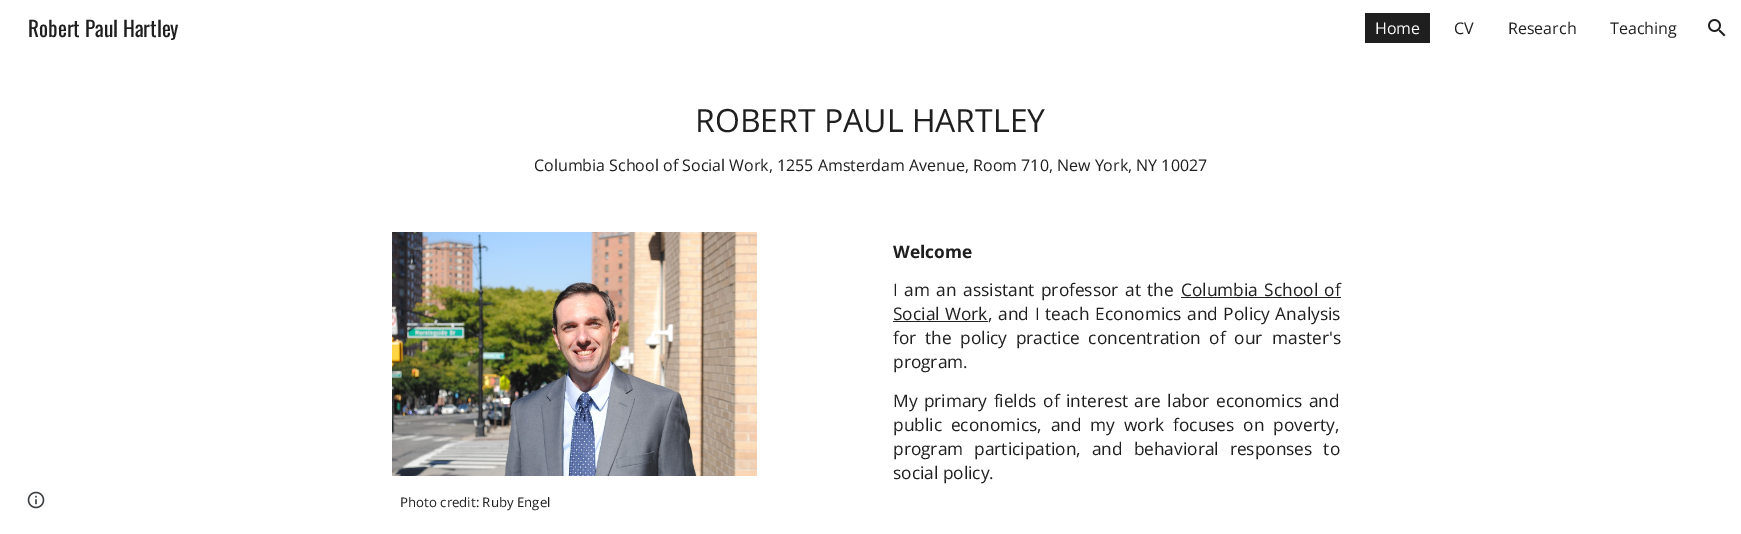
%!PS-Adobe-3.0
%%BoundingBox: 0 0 1741 534
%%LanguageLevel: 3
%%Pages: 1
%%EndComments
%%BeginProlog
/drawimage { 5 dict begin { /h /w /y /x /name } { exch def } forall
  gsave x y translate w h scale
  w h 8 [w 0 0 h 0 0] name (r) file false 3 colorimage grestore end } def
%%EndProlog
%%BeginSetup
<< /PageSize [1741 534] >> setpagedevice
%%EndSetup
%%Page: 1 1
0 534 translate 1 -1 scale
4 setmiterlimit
1 setgray
0 0 1741 534 rectfill
0.122 setgray
1365 13 65 30 rectfill
(images/1.raw) 1708 19 18 18 drawimage
(images/2.raw) 27 491 18 18 drawimage
0.129 setgray
1181 297 160 1 rectfill
893 321 95 1 rectfill
(images/3.raw) 392 232 365 244 drawimage
/Oswald-Regular [21.25 0 0 -21.25 0 0] selectfont
0.122 setgray
28 37 moveto (Robert Paul Hartley) show
/OpenSans-Regular [16 0 0 -16 0 0] selectfont
1 setgray
1375 34 moveto (Home) show
0.122 setgray
1454 34 moveto (CV) show
1508 34 moveto (Research) show
1610 34 moveto (Teaching) show
/OpenSans-Regular [32 0 0 -32 0 0] selectfont
695 132 moveto (ROBERT PAUL HARTLEY) show
/OpenSans-Regular [16 0 0 -16 0 0] selectfont
534 171 moveto (Columbia School of Social Work, 1255 Amsterdam Avenue, Room 710, New York, NY 10027) show
/OpenSans-Bold [17.3 0 0 -17.3 0 0] selectfont
893 258 moveto (Welcome) show
/OpenSans-Regular [17.3 0 0 -17.3 0 0] selectfont
893 296 moveto 2 0 32 (I am an assistant professor at the) widthshow
1181 296 moveto 2 0 32 (Columbia School of) widthshow
893 320 moveto 1 0 32 (Social Work) widthshow
988 320 moveto 1 0 32 (, and) widthshow
1035 320 moveto (I) show
1045 320 moveto (teach) show
1095 320 moveto (E) show
1105 320 moveto 1 0 32 (conomics and Policy Analysis) widthshow
893 344 moveto (for) show
925 344 moveto 4.25 0 32 (the policy practice concentration of our) widthshow
1272 344 moveto (master's) show
893 368 moveto (program.) show
893 407 moveto 2 0 32 (My primary fields of interest are labor economics and) widthshow
893 431 moveto 4.5 0 32 (public economics, and my work focuses on poverty,) widthshow
893 455 moveto 6.5 0 32 (program participation, and behavioral responses to) widthshow
893 479 moveto (social policy.) show
/OpenSans-Regular [13.25 0 0 -13.25 0 0] selectfont
400 507 moveto (Photo credit: Ruby Engel) show
showpage
%%EOF
